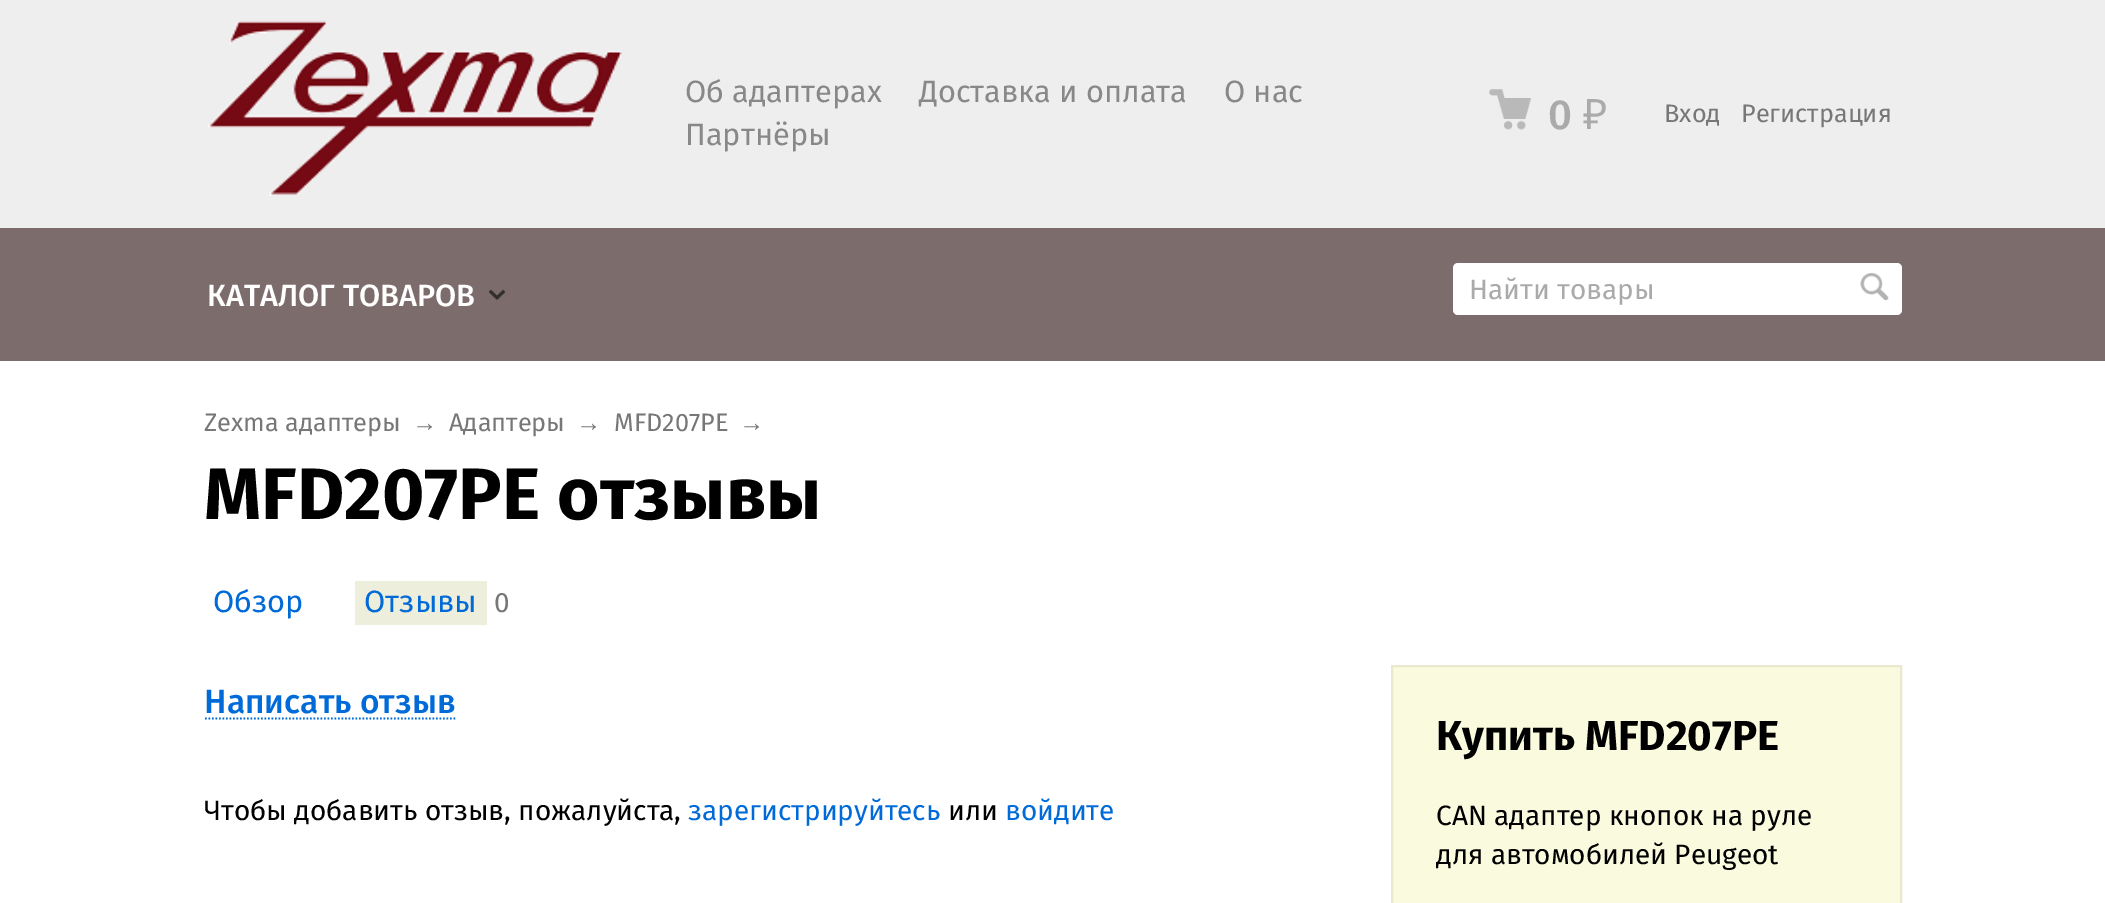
%!PS-Adobe-3.0
%%BoundingBox: 0 0 2105 903
%%LanguageLevel: 3
%%Pages: 1
%%EndComments
%%BeginProlog
/rrect { 5 dict begin { /r /h /w /y /x } { exch def } forall
  x r add y moveto x w add y 2 copy h add r arct x w add y h add x 1 index r arct
  x y h add x y r arct x y 2 copy exch w add exch r arct closepath end } def
/drawimage { 5 dict begin { /h /w /y /x /name } { exch def } forall
  gsave x y translate w h scale
  w h 8 [w 0 0 h 0 0] name (r) file false 3 colorimage grestore end } def
%%EndProlog
%%BeginSetup
<< /PageSize [2105 903] >> setpagedevice
%%EndSetup
%%Page: 1 1
0 903 translate 1 -1 scale
4 setmiterlimit
1 setgray
0 0 2105 903 rectfill
0.49 0.424 0.424 setrgbcolor
0 228 2105 133 rectfill
0.933 setgray
0 0 2105 228 rectfill
(images/1.raw) 208 20 414 176 drawimage
(images/2.raw) 1489 89 43 41 drawimage
(images/3.raw) 488 289 18 11 drawimage
1 setgray
1453 263 449 52 5 rrect fill
(images/4.raw) 1860 273 29 28 drawimage
0.933 0.933 0.867 setrgbcolor
355 581 132 44 rectfill
0 0.42 0.847 setrgbcolor
1.8 setlinewidth
[1.75 1.75] 0 setdash
newpath 205 718.5 moveto 457 718.5 lineto stroke
0.98 0.98 0.875 setrgbcolor
newpath 1392 666 moveto 1901 666 lineto 1901 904 lineto 1392 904 lineto closepath gsave fill grestore
0.914 0.914 0.812 setrgbcolor
2 setlinewidth
[] 0 setdash
stroke
/FiraSans-Regular [30.75 0 0 -30.75 0 0] selectfont
0.533 setgray
685 102 moveto (Об адаптерах) show
919 102 moveto (Доставка и оплата) show
1224 102 moveto (О нас) show
685 145 moveto (Партнёры) show
/FiraSans-Medium [42 0 0 -42 0 0] selectfont
0.667 setgray
1548 129 moveto (0) show
/NotoSans-Regular [42 0 0 -42 0 0] selectfont
1583 129 moveto (₽) show
/FiraSans-Regular [25.25 0 0 -25.25 0 0] selectfont
0.467 setgray
1664 122 moveto (Вход) show
1741 122 moveto (Регистрация) show
/FiraSans-Medium [30.75 0 0 -30.75 0 0] selectfont
1 setgray
207 306 moveto (КАТАЛОГ ТОВАРОВ) show
/FiraSans-Regular [28 0 0 -28 0 0] selectfont
0.667 setgray
1469 299 moveto (Найти товары) show
/FiraSans-Regular [25.25 0 0 -25.25 0 0] selectfont
0.467 setgray
204 431 moveto (Zexma адаптеры) show
/LiberationSans-Regular [25.25 0 0 -25.25 0 0] selectfont
412 431 moveto (→) show
/FiraSans-Regular [25.25 0 0 -25.25 0 0] selectfont
449 431 moveto (Адаптеры) show
/LiberationSans-Regular [25.25 0 0 -25.25 0 0] selectfont
576 431 moveto (→) show
/FiraSans-Regular [25.25 0 0 -25.25 0 0] selectfont
614 431 moveto (MFD207PE) show
/LiberationSans-Regular [25.25 0 0 -25.25 0 0] selectfont
739 431 moveto (→) show
/FiraSans-Bold [72.75 0 0 -72.75 0 0] selectfont
0 setgray
204 519 moveto (MFD207PE отзывы) show
/FiraSans-Regular [30.75 0 0 -30.75 0 0] selectfont
0 0.42 0.847 setrgbcolor
213 612 moveto (Обзор) show
364 612 moveto (Отзывы) show
/FiraSans-Regular [28 0 0 -28 0 0] selectfont
0.467 setgray
494 612 moveto (0) show
/FiraSans-Medium [33.5 0 0 -33.5 0 0] selectfont
0 0.42 0.847 setrgbcolor
204 713 moveto (Написать отзыв) show
/FiraSans-Regular [28 0 0 -28 0 0] selectfont
0 setgray
204 820 moveto (Чтобы добавить отзыв, пожалуйста,) show
0 0.42 0.847 setrgbcolor
688 820 moveto (зарегистрируйтесь) show
0 setgray
948 820 moveto (или) show
0 0.42 0.847 setrgbcolor
1005 820 moveto (войдите) show
/FiraSans-Bold [42 0 0 -42 0 0] selectfont
0 setgray
1436 750 moveto (Купить MFD207PE) show
/FiraSans-Regular [28 0 0 -28 0 0] selectfont
1436 825 moveto (CAN адаптер кнопок на руле) show
1436 864 moveto (для автомобилей Peugeot) show
showpage
%%EOF
